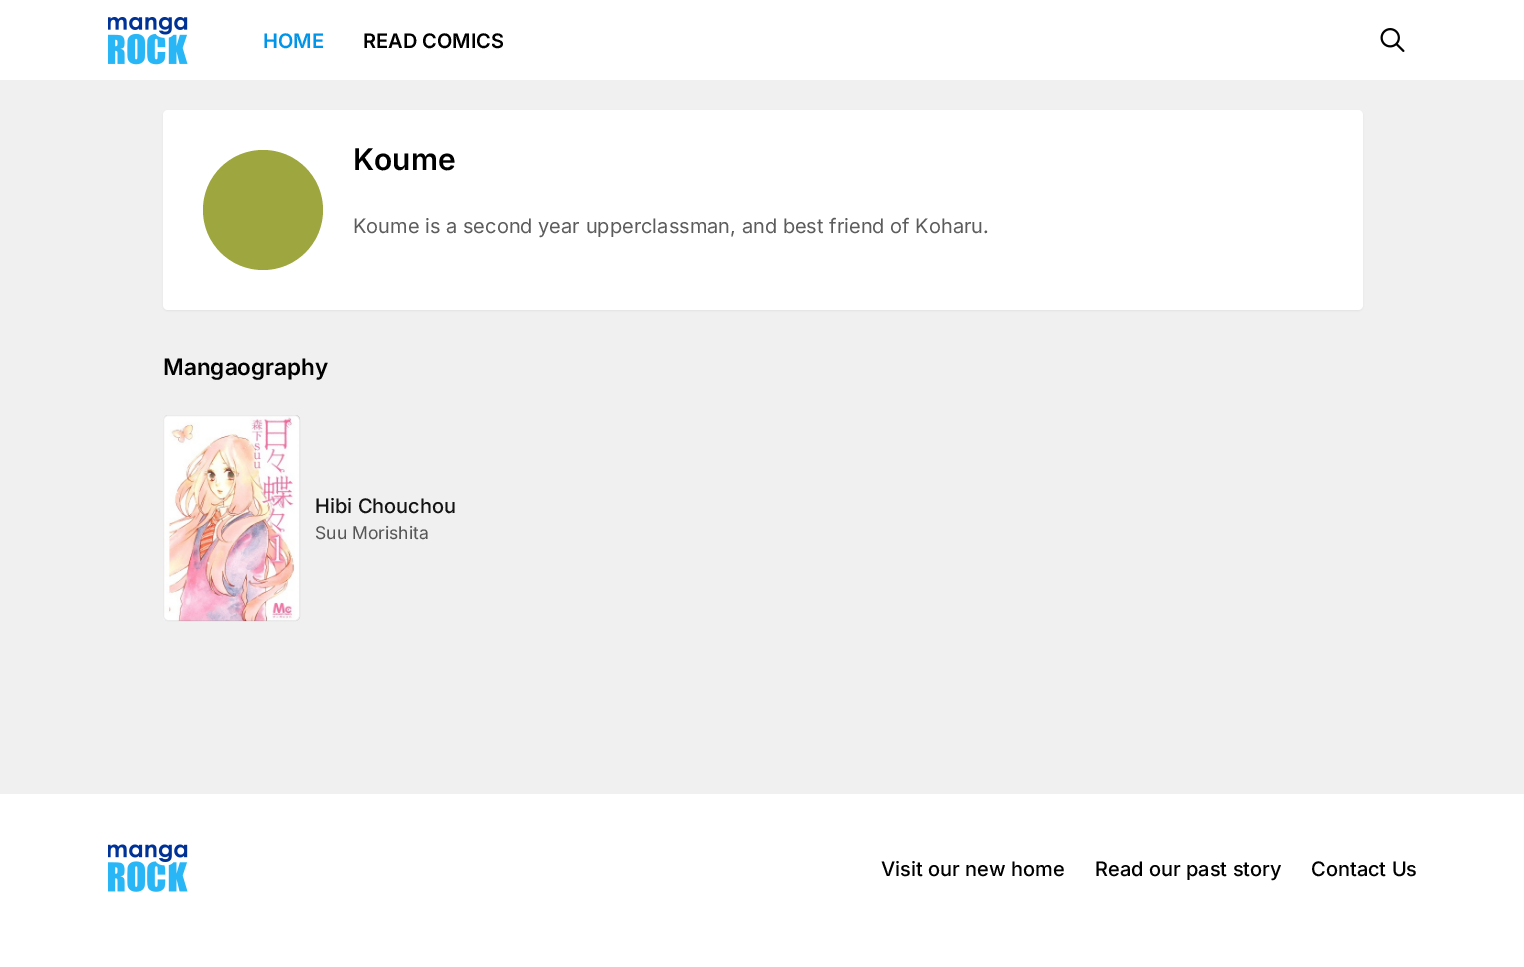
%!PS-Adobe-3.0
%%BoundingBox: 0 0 1524 967
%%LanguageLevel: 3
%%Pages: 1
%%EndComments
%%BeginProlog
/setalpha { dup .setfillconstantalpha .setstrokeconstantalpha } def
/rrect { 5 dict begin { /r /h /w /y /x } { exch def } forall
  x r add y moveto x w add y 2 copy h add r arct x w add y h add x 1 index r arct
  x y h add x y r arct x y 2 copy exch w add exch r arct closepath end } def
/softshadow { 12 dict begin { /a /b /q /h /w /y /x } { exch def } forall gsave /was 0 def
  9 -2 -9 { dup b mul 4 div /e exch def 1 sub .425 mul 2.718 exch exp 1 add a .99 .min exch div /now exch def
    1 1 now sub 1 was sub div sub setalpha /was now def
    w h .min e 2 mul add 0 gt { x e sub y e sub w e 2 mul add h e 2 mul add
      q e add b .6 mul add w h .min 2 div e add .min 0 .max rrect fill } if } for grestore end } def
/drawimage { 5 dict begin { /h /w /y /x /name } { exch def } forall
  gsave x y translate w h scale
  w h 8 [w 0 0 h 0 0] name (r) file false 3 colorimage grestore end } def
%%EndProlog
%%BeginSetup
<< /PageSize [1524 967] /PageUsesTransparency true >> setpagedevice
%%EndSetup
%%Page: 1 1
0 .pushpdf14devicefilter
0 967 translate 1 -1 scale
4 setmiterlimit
1 setgray
0 0 1524 967 rectfill
(images/1.raw) 108 17 80 48 drawimage
(images/2.raw) 1380 28 25 24 drawimage
0.941 setgray
0 80 1524 714 rectfill
0 setgray
163 111 1200 200 5 1 0.05 softshadow
1 setgray
163 110 1200 200 5 rrect fill
0.62 0.651 0.247 setrgbcolor
newpath 263 210 60 0 360 arc closepath fill
(images/3.raw) 163 415 137 207 drawimage
0.08 setalpha
0 setgray
163.5 415.5 136 205 4.5 rrect stroke
1 setalpha
(images/4.raw) 108 844 80 48 drawimage
/Inter-SemiBold [20 0 0 -20 0 0] selectfont
0 0.584 0.914 setrgbcolor
263 48 moveto (HOME) show
0 setgray
363 48 moveto (READ COMICS) show
/Inter-SemiBold [30 0 0 -30 0 0] selectfont
353 170 moveto (Koume) show
/Inter-Regular [20 0 0 -20 0 0] selectfont
0.361 setgray
353 233 moveto (Koume is a second year upperclassman, and best friend of Koharu.) show
/Inter-SemiBold [22.5 0 0 -22.5 0 0] selectfont
0 setgray
163 375 moveto (Mangaography) show
/Inter-Medium [20 0 0 -20 0 0] selectfont
0.075 setgray
315 513 moveto (Hibi Chouchou) show
/Inter-Regular [17.5 0 0 -17.5 0 0] selectfont
0.337 setgray
315 539 moveto (Suu Morishita) show
/Inter-Medium [20 0 0 -20 0 0] selectfont
0 setgray
881 876 moveto (Visit our new home) show
1095 876 moveto (Read our past story) show
1311 876 moveto (Contact Us) show
.poppdf14devicefilter showpage
%%EOF
